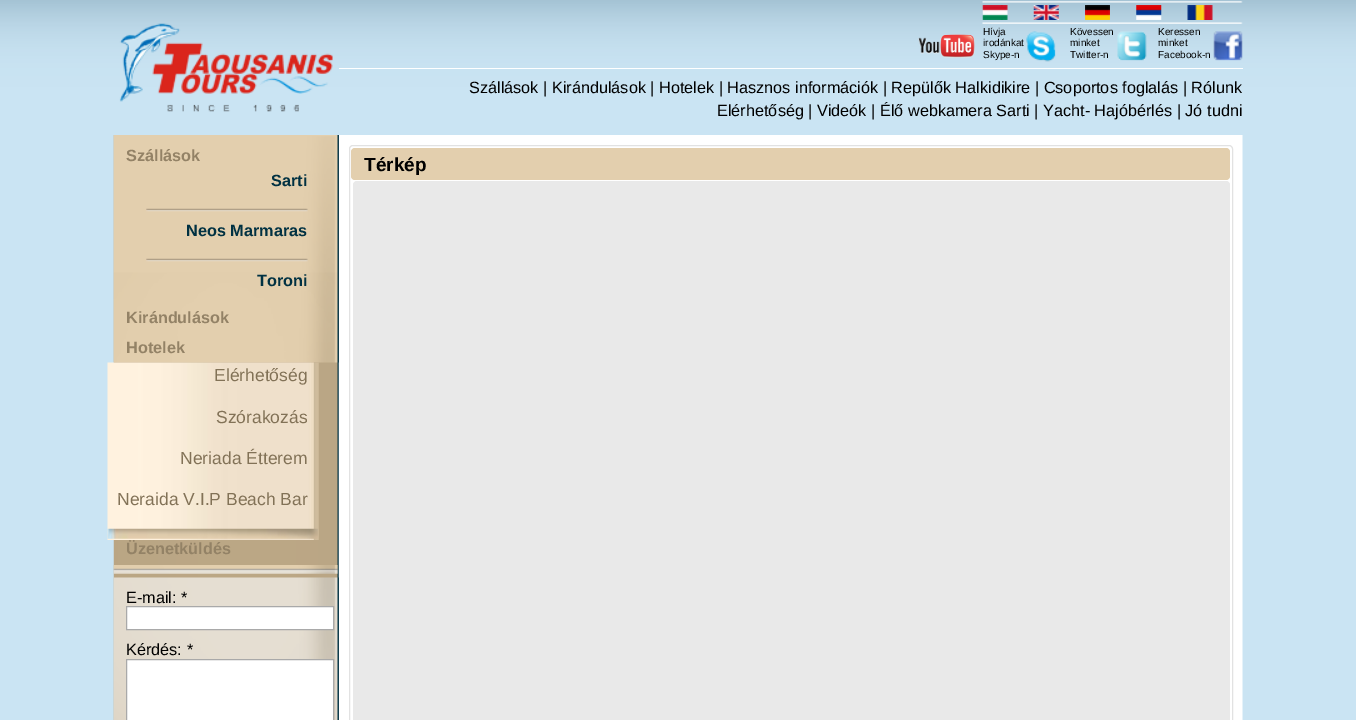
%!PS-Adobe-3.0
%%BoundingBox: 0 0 1356 720
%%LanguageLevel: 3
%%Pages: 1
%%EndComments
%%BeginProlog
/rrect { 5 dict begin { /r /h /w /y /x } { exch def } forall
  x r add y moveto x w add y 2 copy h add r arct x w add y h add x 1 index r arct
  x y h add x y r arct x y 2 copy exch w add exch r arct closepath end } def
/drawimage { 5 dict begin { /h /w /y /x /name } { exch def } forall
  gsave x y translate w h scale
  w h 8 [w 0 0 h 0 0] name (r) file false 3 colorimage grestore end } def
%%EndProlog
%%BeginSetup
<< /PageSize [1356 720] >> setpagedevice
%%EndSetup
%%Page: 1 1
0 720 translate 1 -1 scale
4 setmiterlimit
1 setgray
0 0 1356 720 rectfill
(images/1.raw) 0 0 1356 720 drawimage
(images/2.raw) 119 23 214 89 drawimage
(images/3.raw) 918 34 57 24 drawimage
(images/4.raw) 982 1 261 61 drawimage
(images/5.raw) 982 5 26 15 drawimage
(images/6.raw) 1033 5 26 15 drawimage
(images/7.raw) 1085 5 25 15 drawimage
(images/8.raw) 1136 5 26 15 drawimage
(images/9.raw) 1187 5 26 15 drawimage
339 68 904 1 rectfill
(images/10.raw) 113 135 1130 585 drawimage
(images/11.raw) 113 135 226 228 drawimage
(images/12.raw) 146 208 162 4 drawimage
(images/13.raw) 146 258 162 4 drawimage
(images/14.raw) 107 362 212 178 drawimage
(images/15.raw) 107 528 211 11 drawimage
(images/16.raw) 113 565 225 9 drawimage
(images/17.raw) 113 577 226 143 drawimage
newpath 126.5 606.5 moveto 333.5 606.5 lineto 333.5 629.5 lineto 126.5 629.5 lineto closepath gsave fill grestore
0.663 setgray
stroke
1 setgray
newpath 126.5 659.5 moveto 333.5 659.5 lineto 333.5 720.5 lineto 126.5 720.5 lineto closepath gsave fill grestore
0.663 setgray
stroke
0.886 setgray
349.5 145.5 883 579 3.5 rrect stroke
0.89 0.812 0.682 setrgbcolor
351 148 879 32 4 rrect fill
0.914 setgray
353 181 877 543 4 rrect fill
/LiberationSans-Regular [10 0 0 -10 0 0] selectfont
0 setgray
983 35 moveto (Hívja) show
983 46 moveto (irodánkat) show
983 58 moveto (Skype-n) show
1070 35 moveto (Kövessen) show
1070 46 moveto (minket) show
1070 58 moveto (Twitter-n) show
1158 35 moveto (Keressen) show
1158 46 moveto (minket) show
1158 58 moveto (Facebook-n) show
/LiberationSans-Regular [16.25 0 0 -16.25 0 0] selectfont
469 93 moveto (Szállások | Kirándulások | Hotelek | Hasznos információk | Repülők Halkidikire | Csoportos foglalás | Rólunk) show
717 116 moveto (Elérhetőség | Videók | Élő webkamera Sarti | Yacht- Hajóbérlés | Jó tudni) show
/LiberationSans-Bold [16.25 0 0 -16.25 0 0] selectfont
0.576 0.51 0.4 setrgbcolor
126 161 moveto (Szállások) show
0 0.192 0.259 setrgbcolor
271 186 moveto (Sarti) show
186 236 moveto (Neos Marmaras) show
257 286 moveto (Toroni) show
0.576 0.51 0.4 setrgbcolor
126 323 moveto (Kirándulások) show
126 353 moveto (Hotelek) show
/LiberationSans-Regular [17.5 0 0 -17.5 0 0] selectfont
0.51 0.447 0.341 setrgbcolor
214 381 moveto (Elérhetőség) show
216 423 moveto (Szórakozás) show
180 464 moveto (Neriada Étterem) show
117 505 moveto (Neraida V.I.P Beach Bar) show
/LiberationSans-Bold [16.25 0 0 -16.25 0 0] selectfont
0.576 0.51 0.4 setrgbcolor
126 554 moveto (Üzenetküldés) show
/LiberationSans-Regular [16.25 0 0 -16.25 0 0] selectfont
0 setgray
126 603 moveto (E-mail: *) show
126 655 moveto (Kérdés: *) show
/LiberationSans-Bold [19 0 0 -19 0 0] selectfont
364 171 moveto (Térkép) show
showpage
%%EOF
